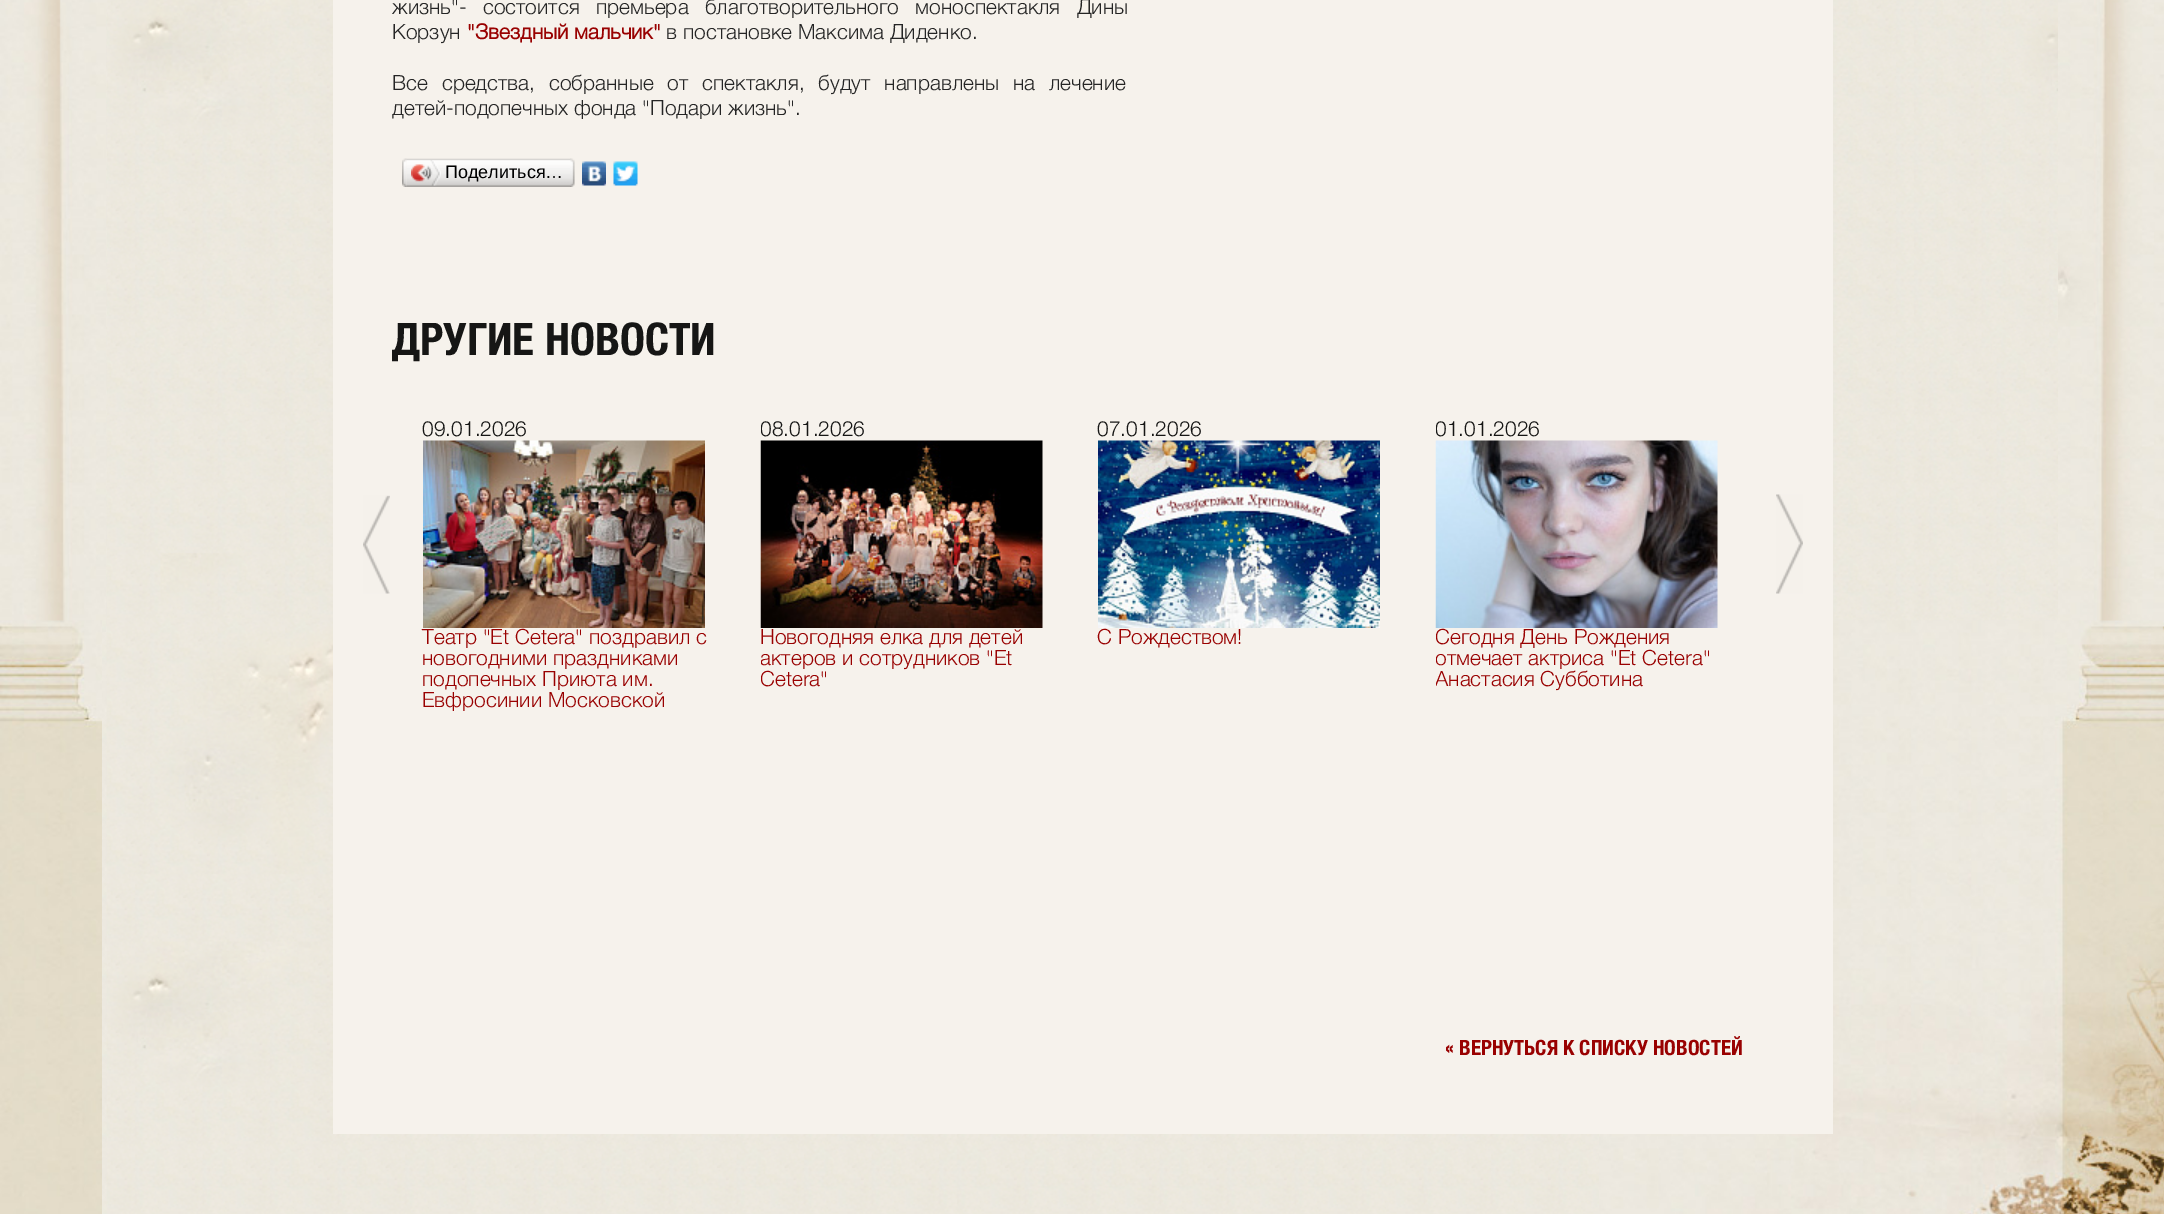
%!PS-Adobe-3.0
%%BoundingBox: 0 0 2164 1214
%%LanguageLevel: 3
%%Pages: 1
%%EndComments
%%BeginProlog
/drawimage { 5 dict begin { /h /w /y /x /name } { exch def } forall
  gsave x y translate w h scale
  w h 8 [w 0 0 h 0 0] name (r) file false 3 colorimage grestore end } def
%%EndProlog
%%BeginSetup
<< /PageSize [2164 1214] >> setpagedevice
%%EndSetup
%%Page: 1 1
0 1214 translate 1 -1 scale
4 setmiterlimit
1 setgray
0 0 2164 1214 rectfill
(images/1.raw) 106 0 1952 1214 drawimage
(images/2.raw) 102 0 5 1214 drawimage
(images/3.raw) 0 0 106 632 drawimage
(images/4.raw) 0 620 102 594 drawimage
(images/5.raw) 2058 0 106 621 drawimage
(images/6.raw) 1599 620 565 594 drawimage
0.965 0.949 0.925 setrgbcolor
333 0 1500 1134 rectfill
(images/7.raw) 406 158 164 29 drawimage
(images/8.raw) 402 158 5 29 drawimage
(images/9.raw) 411 160 30 26 drawimage
(images/10.raw) 570 158 5 29 drawimage
(images/11.raw) 582 161 24 25 drawimage
(images/12.raw) 613 161 25 25 drawimage
(images/13.raw) 363 495 27 99 drawimage
(images/14.raw) 423 440 282 188 drawimage
(images/15.raw) 760 440 283 188 drawimage
(images/16.raw) 1098 440 282 188 drawimage
(images/17.raw) 1435 440 283 188 drawimage
(images/18.raw) 1776 494 27 100 drawimage
/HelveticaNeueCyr-Light [21 0 0 -21 0 0] selectfont
0.145 setgray
392 14 moveto 10.5 0 32 (жизнь"- состоится премьера благотворительного моноспектакля Дины) widthshow
392 39 moveto (Корзун) show
/HelveticaNeueCyr-Bold [21 0 0 -21 0 0] selectfont
0.6 0.004 0.004 setrgbcolor
467 39 moveto ("Звездный мальчик") show
/HelveticaNeueCyr-Light [21 0 0 -21 0 0] selectfont
0.145 setgray
666 39 moveto (в постановке Максима Диденко.) show
392 90 moveto 8 0 32 (Все средства, собранные от спектакля, будут направлены на лечение) widthshow
392 115 moveto (детей-подопечных фонда "Подари жизнь".) show
/LiberationSans-Regular [18 0 0 -18 0 0] selectfont
0 setgray
445 178 moveto (Поделиться…) show
/HelveticaNeue-Bold [45 0 0 -45 0 0] selectfont
0.086 0.086 0.082 setrgbcolor
392 355 moveto (ДРУГИЕ НОВОСТИ) show
/HelveticaNeueCyr-Light [21 0 0 -21 0 0] selectfont
422 436 moveto (09.01.2026) show
0.6 0.004 0.004 setrgbcolor
422 644 moveto (Театр "Et Cetera" поздравил с) show
422 665 moveto (новогодними праздниками) show
422 686 moveto (подопечных Приюта им.) show
422 707 moveto (Евфросинии Московской) show
gsave
761 420 337 450 rectclip
0.086 0.086 0.082 setrgbcolor
760 436 moveto (08.01.2026) show
grestore
760 644 moveto (Новогодняя елка для детей) show
gsave
761 420 337 450 rectclip
760 665 moveto (актеров и сотрудников "Et) show
760 686 moveto (Cetera") show
grestore
0.086 0.086 0.082 setrgbcolor
1097 436 moveto (07.01.2026) show
0.6 0.004 0.004 setrgbcolor
1097 644 moveto (С Рождеством!) show
gsave
1436 420 337 450 rectclip
0.086 0.086 0.082 setrgbcolor
1435 436 moveto (01.01.2026) show
0.6 0.004 0.004 setrgbcolor
1435 644 moveto (Сегодня День Рождения) show
1435 665 moveto (отмечает актриса "Et Cetera") show
1435 686 moveto (Анастасия Субботина) show
grestore
/HelveticaNeue-Bold [21 0 0 -21 0 0] selectfont
1445 1055 moveto (« ВЕРНУТЬСЯ К СПИСКУ НОВОСТЕЙ) show
showpage
%%EOF
